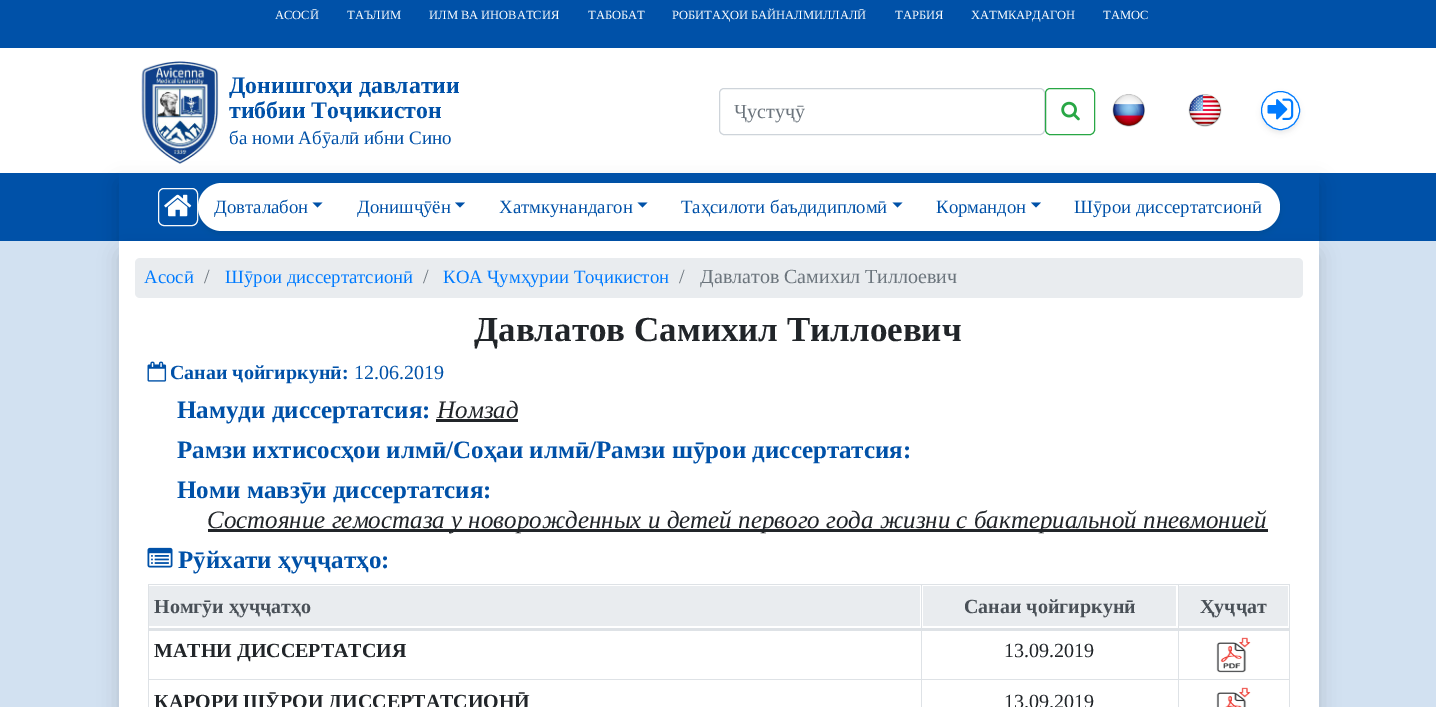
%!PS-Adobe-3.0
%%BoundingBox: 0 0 1436 707
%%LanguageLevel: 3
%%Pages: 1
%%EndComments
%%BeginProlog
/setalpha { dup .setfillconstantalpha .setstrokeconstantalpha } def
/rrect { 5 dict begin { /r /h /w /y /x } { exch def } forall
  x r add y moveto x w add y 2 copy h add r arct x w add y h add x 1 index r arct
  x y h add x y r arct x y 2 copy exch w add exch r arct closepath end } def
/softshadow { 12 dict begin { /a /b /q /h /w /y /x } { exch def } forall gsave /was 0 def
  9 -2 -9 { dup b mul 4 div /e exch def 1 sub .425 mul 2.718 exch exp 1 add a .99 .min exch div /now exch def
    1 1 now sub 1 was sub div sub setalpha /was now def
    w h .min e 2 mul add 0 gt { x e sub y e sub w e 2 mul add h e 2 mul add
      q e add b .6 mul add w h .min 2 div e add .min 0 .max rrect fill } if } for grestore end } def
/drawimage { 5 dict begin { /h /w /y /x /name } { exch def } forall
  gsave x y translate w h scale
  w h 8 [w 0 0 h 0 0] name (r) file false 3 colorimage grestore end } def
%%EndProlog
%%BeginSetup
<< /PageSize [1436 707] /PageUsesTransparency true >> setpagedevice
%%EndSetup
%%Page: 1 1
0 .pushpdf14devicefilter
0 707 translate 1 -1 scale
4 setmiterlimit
1 setgray
0 0 1436 707 rectfill
0 0.318 0.659 setrgbcolor
0 0 1436 48 rectfill
0 173 1436 68 rectfill
0 setgray
119 183 1200 68 0 10 0.15 softshadow
(images/1.raw) 141 61 78 103 drawimage
0.808 0.831 0.855 setrgbcolor
719.5 88.5 325 46 4.5 rrect stroke
0.157 0.655 0.271 setrgbcolor
1045.5 88.5 49 46 4.5 rrect stroke
(images/2.raw) 1061 101 19 20 drawimage
(images/3.raw) 1112 94 33 33 drawimage
(images/4.raw) 1188 94 34 33 drawimage
gsave
newpath 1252 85 moveto 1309 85 lineto 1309 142 lineto 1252 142 lineto closepath 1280.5 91 moveto 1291.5 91 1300 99.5 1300 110.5 curveto 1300 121.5 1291.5 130 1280.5 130 curveto 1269.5 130 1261 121.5 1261 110.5 curveto 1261 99.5 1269.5 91 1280.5 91 curveto closepath eoclip newpath
0 setgray
1261 94 39 39 19.5 2.5 0.07 softshadow
grestore
0 0.482 1 setrgbcolor
newpath 1280.5 110.5 19 0 360 arc closepath stroke
(images/5.raw) 1267 98 27 22 drawimage
0 0.318 0.659 setrgbcolor
119 173 1200 68 rectfill
gsave newpath 0 241 moveto 1436 241 lineto 1436 707 lineto 0 707 lineto closepath clip newpath
<< /ShadingType 2 /ColorSpace /DeviceRGB /Coords [718 241 718 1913] /Extend [true true] /Function << /FunctionType 3 /Domain [0 1] /Functions [<< /FunctionType 2 /Domain [0 1] /C0 [0.824 0.882 0.945] /C1 [0.824 0.882 0.945] /N 1 >> << /FunctionType 2 /Domain [0 1] /C0 [0.824 0.882 0.945] /C1 [0 0.318 0.659] /N 1 >>] /Bounds [0.67] /Encode [0 1 0 1] >> >> shfill grestore
0 setgray
119 251 1200 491 5 10 0.15 softshadow
0.973 0.976 0.98 setrgbcolor
158.5 188.5 39 37 5.5 rrect stroke
(images/6.raw) 164 194 28 23 drawimage
1 setgray
119 241 1200 466 rectfill
0 setgray
198 185 1082 49 24.5 2.5 0.07 softshadow
1 setgray
198 183 1082 48 24 rrect fill
0 0.318 0.659 setrgbcolor
newpath 312.5 202.5 moveto 322.5 202.5 lineto 317.5 207.5 lineto closepath fill
newpath 455 202.5 moveto 465 202.5 lineto 460 207.5 lineto closepath fill
newpath 637.5 202.5 moveto 647.5 202.5 lineto 642.5 207.5 lineto closepath fill
newpath 892.5 202.5 moveto 902.5 202.5 lineto 897.5 207.5 lineto closepath fill
newpath 1031 202.5 moveto 1041 202.5 lineto 1036 207.5 lineto closepath fill
0.914 0.925 0.937 setrgbcolor
135 258 1168 40 5 rrect fill
(images/7.raw) 147 361 20 21 drawimage
0.129 0.145 0.161 setrgbcolor
436 419 82 3 rectfill
208 529 1060 3 rectfill
(images/8.raw) 147 547 26 21 drawimage
0.914 0.925 0.937 setrgbcolor
149 586 771 40 rectfill
0.871 0.886 0.902 setrgbcolor
1178 584 112 1 rectfill
1178 679 112 1 rectfill
1178 679 1 28 rectfill
921 679 258 1 rectfill
1178 628 1 52 rectfill
1178 584 1 45 rectfill
921 584 258 1 rectfill
921 679 1 28 rectfill
148 679 775 1 rectfill
921 628 1 52 rectfill
921 584 1 45 rectfill
148 584 775 1 rectfill
148 628 1 79 rectfill
148 584 1 45 rectfill
0.914 0.925 0.937 setrgbcolor
923 586 253 40 rectfill
1179 586 109 40 rectfill
0.871 0.886 0.902 setrgbcolor
1289 628 1 79 rectfill
1289 584 1 45 rectfill
148 628 1142 3 rectfill
(images/9.raw) 1216 637 35 36 drawimage
(images/10.raw) 1216 687 35 20 drawimage
/LiberationSerif-Regular [12.5 0 0 -12.5 0 0] selectfont
1 setgray
275 19 moveto (АСОСӢ) show
347 19 moveto (ТАЪЛИМ) show
429 19 moveto (ИЛМ ВА ИНОВАТСИЯ) show
588 19 moveto (ТАБОБАТ) show
672 19 moveto (РОБИТАҲОИ БАЙНАЛМИЛЛАЛӢ) show
895 19 moveto (ТАРБИЯ) show
971 19 moveto (ХАТМКАРДАГОН) show
1103 19 moveto (ТАМОС) show
/LiberationSerif-Bold [23.75 0 0 -23.75 0 0] selectfont
0 0.318 0.659 setrgbcolor
229 93 moveto (Донишгоҳи давлатии) show
229 118 moveto (тиббии Тоҷикистон) show
/LiberationSerif-Regular [19 0 0 -19 0 0] selectfont
229 144 moveto (ба номи Абӯалӣ ибни Сино) show
/LiberationSerif-Regular [20 0 0 -20 0 0] selectfont
0.424 0.459 0.49 setrgbcolor
734 118 moveto (Ҷустуҷӯ) show
/LiberationSerif-Regular [18.75 0 0 -18.75 0 0] selectfont
0 0.318 0.659 setrgbcolor
214 213 moveto (Довталабон) show
357 213 moveto (Донишҷӯён) show
499 213 moveto (Хатмкунандагон) show
681 213 moveto (Таҳсилоти баъдидипломӣ) show
936 213 moveto (Кормандон) show
1074 213 moveto (Шӯрои диссертатсионӣ) show
0 0.482 1 setrgbcolor
144 283 moveto (Асосӣ) show
/LiberationSerif-Regular [20 0 0 -20 0 0] selectfont
0.424 0.459 0.49 setrgbcolor
204 283 moveto (/) show
/LiberationSerif-Regular [18.75 0 0 -18.75 0 0] selectfont
0 0.482 1 setrgbcolor
225 283 moveto (Шӯрои диссертатсионӣ) show
/LiberationSerif-Regular [20 0 0 -20 0 0] selectfont
0.424 0.459 0.49 setrgbcolor
423 283 moveto (/) show
/LiberationSerif-Regular [18.75 0 0 -18.75 0 0] selectfont
0 0.482 1 setrgbcolor
443 283 moveto (КОА Ҷумҳурии Тоҷикистон) show
/LiberationSerif-Regular [20 0 0 -20 0 0] selectfont
0.424 0.459 0.49 setrgbcolor
679 283 moveto (/) show
700 283 moveto (Давлатов Самихил Тиллоевич) show
/LiberationSerif-Bold [35 0 0 -35 0 0] selectfont
0.129 0.145 0.161 setrgbcolor
474 341 moveto (Давлатов Самихил Тиллоевич) show
/LiberationSerif-Bold [20 0 0 -20 0 0] selectfont
0 0.318 0.659 setrgbcolor
170 379 moveto (Санаи ҷойгиркунӣ:) show
/LiberationSerif-Regular [20 0 0 -20 0 0] selectfont
354 379 moveto (12.06.2019) show
/LiberationSerif-Bold [25 0 0 -25 0 0] selectfont
177 418 moveto (Намуди диссертатсия:) show
/LiberationSerif-Italic [25 0 0 -25 0 0] selectfont
0.129 0.145 0.161 setrgbcolor
437 418 moveto (Номзад) show
/LiberationSerif-Bold [25 0 0 -25 0 0] selectfont
0 0.318 0.659 setrgbcolor
177 458 moveto (Рамзи ихтисосҳои илмӣ/Соҳаи илмӣ/Рамзи шӯрои диссертатсия:) show
177 498 moveto (Номи мавзӯи диссертатсия:) show
/LiberationSerif-Italic [25 0 0 -25 0 0] selectfont
0.129 0.145 0.161 setrgbcolor
207 528 moveto (Состояние гемостаза у новорожденных и детей первого года жизни с бактериальной пневмонией) show
/LiberationSerif-Bold [25 0 0 -25 0 0] selectfont
0 0.318 0.659 setrgbcolor
178 568 moveto (Рӯйхати ҳуҷҷатҳо:) show
/LiberationSerif-Bold [20 0 0 -20 0 0] selectfont
0.286 0.314 0.341 setrgbcolor
154 613 moveto (Номгӯи ҳуҷҷатҳо) show
964 613 moveto (Санаи ҷойгиркунӣ) show
1200 613 moveto (Ҳуҷҷат) show
0.129 0.145 0.161 setrgbcolor
154 657 moveto (МАТНИ ДИССЕРТАТСИЯ) show
/LiberationSerif-Regular [20 0 0 -20 0 0] selectfont
1004 657 moveto (13.09.2019) show
/LiberationSerif-Bold [20 0 0 -20 0 0] selectfont
154 708 moveto (ҚАРОРИ ШӮРОИ ДИССЕРТАТСИОНӢ) show
/LiberationSerif-Regular [20 0 0 -20 0 0] selectfont
1004 708 moveto (13.09.2019) show
.poppdf14devicefilter showpage
%%EOF
